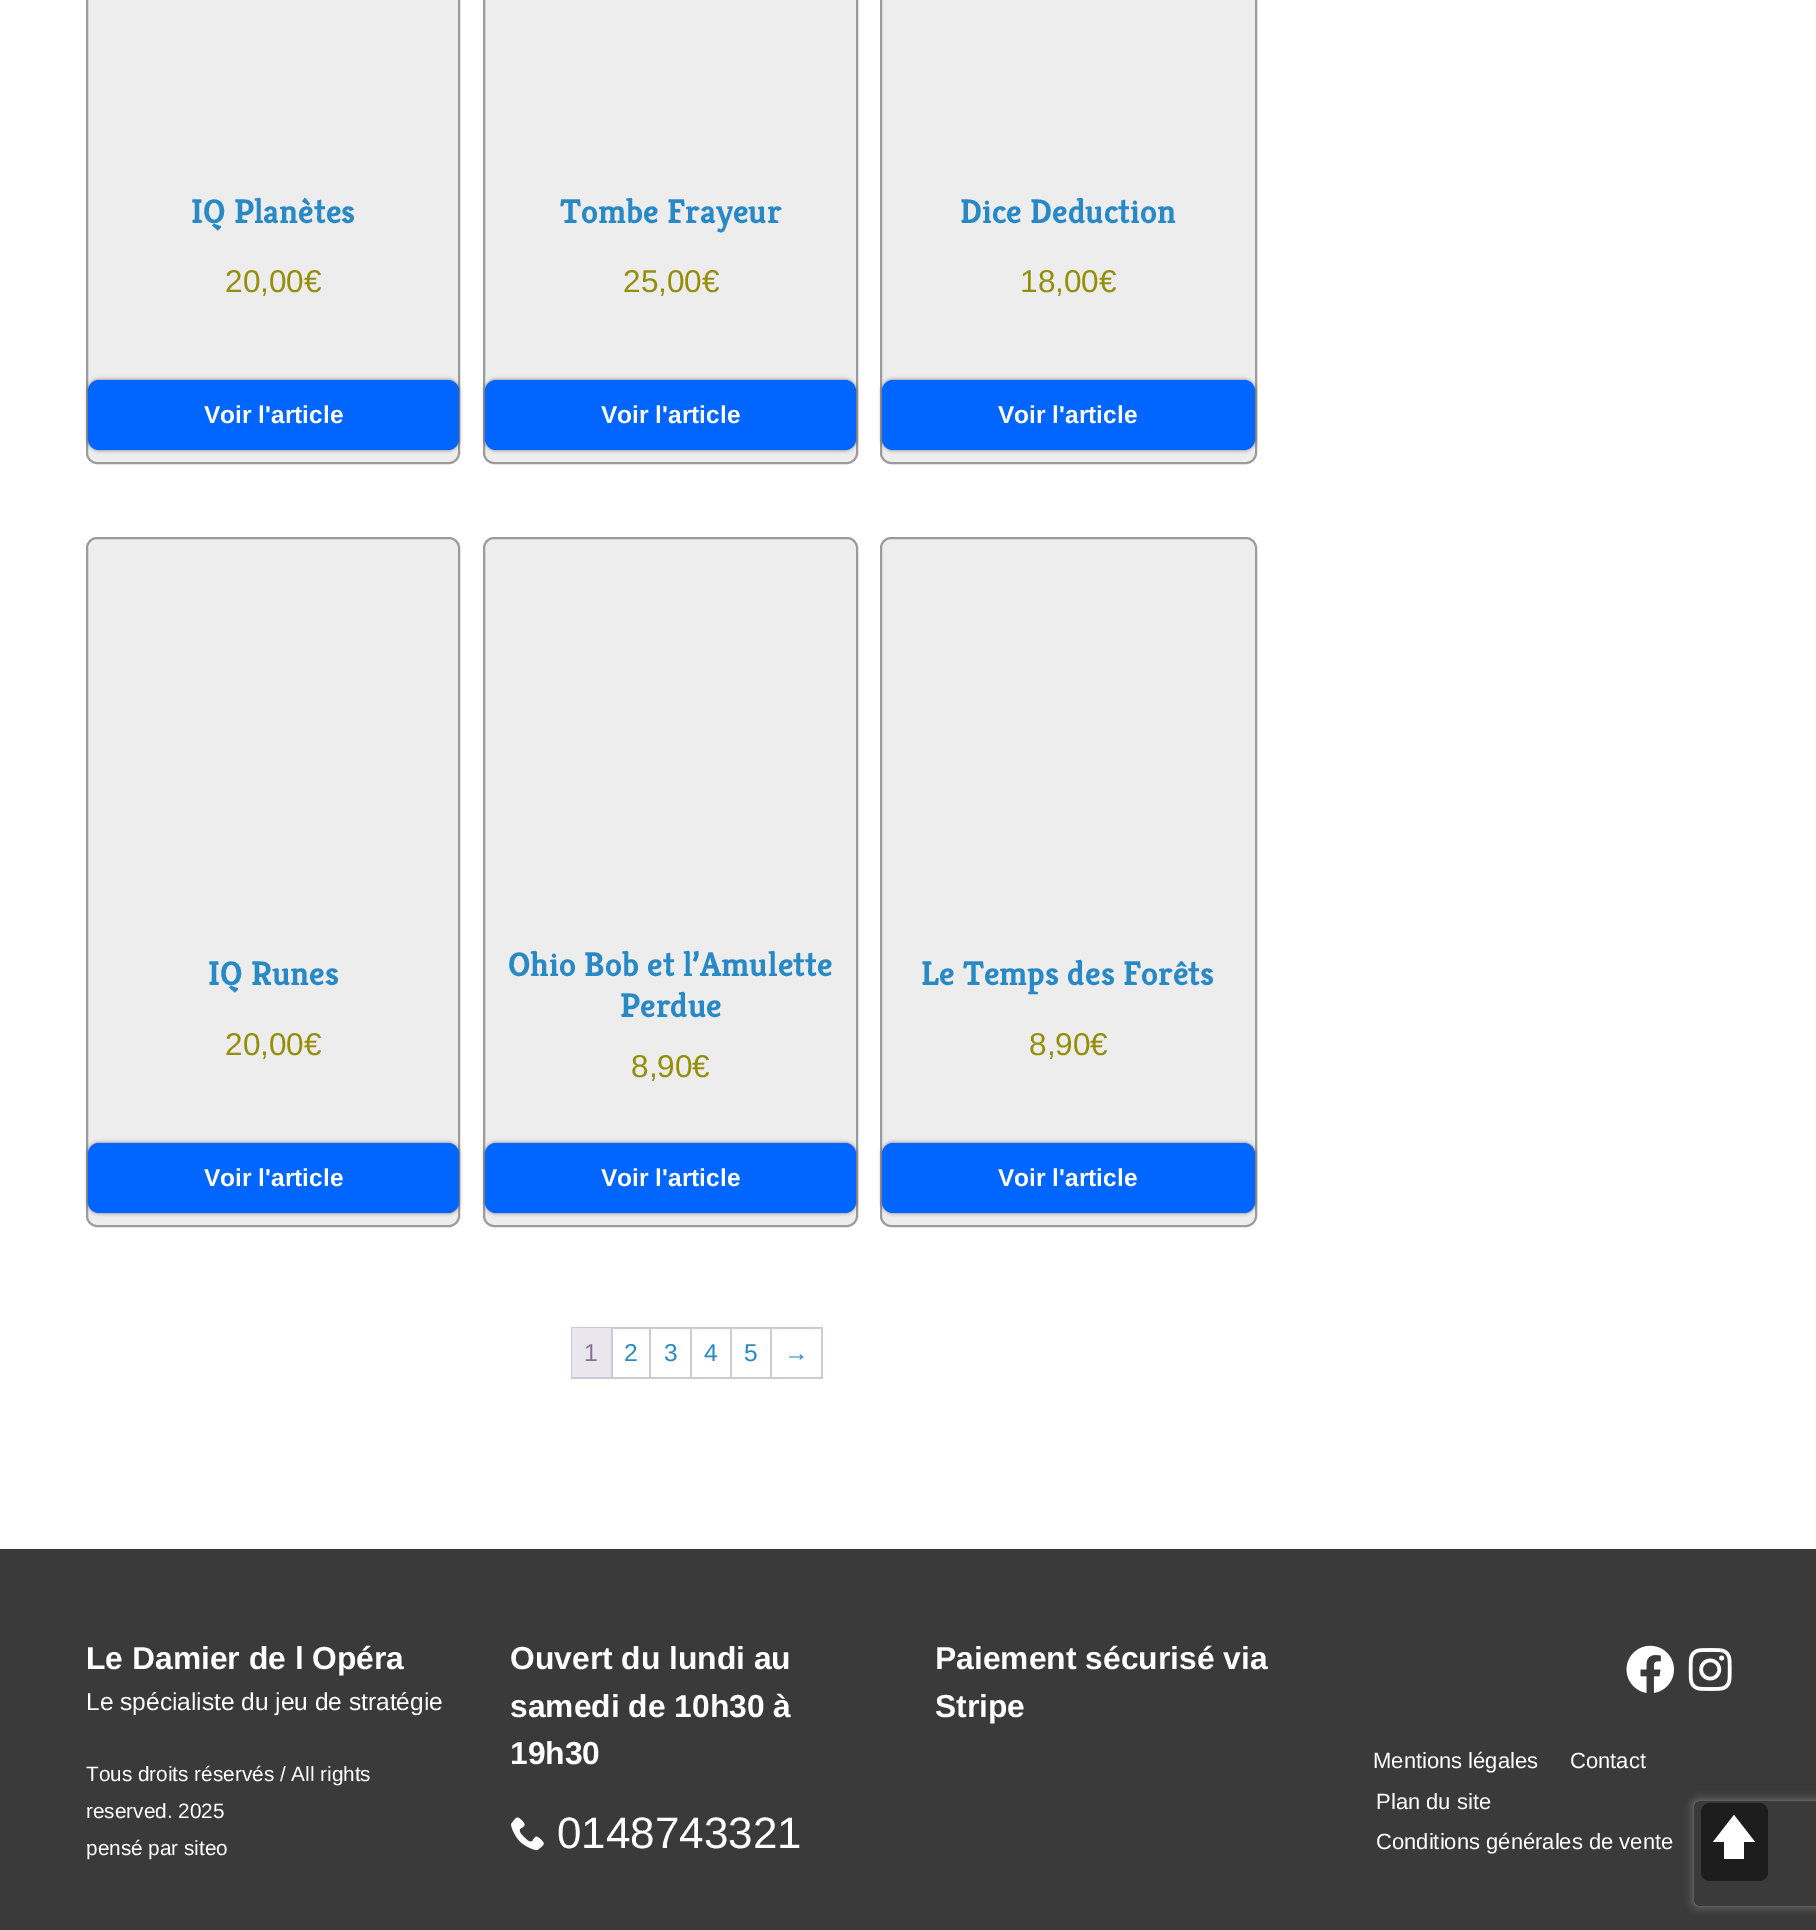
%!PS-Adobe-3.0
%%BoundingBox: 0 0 1816 1930
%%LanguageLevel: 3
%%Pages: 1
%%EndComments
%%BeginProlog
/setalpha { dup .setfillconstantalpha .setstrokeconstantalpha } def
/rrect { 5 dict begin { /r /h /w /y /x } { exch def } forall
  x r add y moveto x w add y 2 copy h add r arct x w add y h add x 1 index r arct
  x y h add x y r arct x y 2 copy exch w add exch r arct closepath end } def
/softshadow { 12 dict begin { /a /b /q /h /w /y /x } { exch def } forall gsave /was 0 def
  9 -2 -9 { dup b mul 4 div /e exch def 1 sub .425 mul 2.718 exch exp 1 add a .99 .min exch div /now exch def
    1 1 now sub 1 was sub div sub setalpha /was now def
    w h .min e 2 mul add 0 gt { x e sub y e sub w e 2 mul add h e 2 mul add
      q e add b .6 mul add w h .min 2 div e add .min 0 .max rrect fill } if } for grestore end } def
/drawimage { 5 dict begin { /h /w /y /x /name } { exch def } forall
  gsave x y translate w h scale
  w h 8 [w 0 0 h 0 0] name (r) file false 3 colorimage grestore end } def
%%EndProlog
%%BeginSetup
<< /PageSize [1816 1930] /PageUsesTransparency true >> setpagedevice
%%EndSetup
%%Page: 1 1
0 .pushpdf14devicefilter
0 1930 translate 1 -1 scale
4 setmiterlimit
0.227 setgray
0 0 1816 1930 rectfill
1 setgray
0 0 1816 1549 rectfill
0.929 setgray
87 -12 372 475 10 rrect gsave fill grestore
0.608 setgray
2 setlinewidth
stroke
0 setgray
88 380 371 70 11 2 0.5 softshadow
0 0.4 1 setrgbcolor
88 380 371 70 11 rrect fill
0.929 setgray
484 -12 373 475 10 rrect gsave fill grestore
0.608 setgray
stroke
0 setgray
485 380 371 70 11 2 0.5 softshadow
0 0.4 1 setrgbcolor
485 380 371 70 11 rrect fill
0.929 setgray
881 -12 375 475 10 rrect gsave fill grestore
0.608 setgray
stroke
0 setgray
882 380 373 70 11 2 0.5 softshadow
0 0.4 1 setrgbcolor
882 380 373 70 11 rrect fill
0.929 setgray
87 538 372 688 10 rrect gsave fill grestore
0.608 setgray
stroke
0 setgray
88 1143 371 70 11 2 0.5 softshadow
0 0.4 1 setrgbcolor
88 1143 371 70 11 rrect fill
0.929 setgray
484 538 373 688 10 rrect gsave fill grestore
0.608 setgray
stroke
0 setgray
485 1143 371 70 11 2 0.5 softshadow
0 0.4 1 setrgbcolor
485 1143 371 70 11 rrect fill
0.929 setgray
881 538 375 688 10 rrect gsave fill grestore
0.608 setgray
stroke
0 setgray
882 1143 373 70 11 2 0.5 softshadow
0 0.4 1 setrgbcolor
882 1143 373 70 11 rrect fill
0.812 0.784 0.847 setrgbcolor
571 1327 252 2 rectfill
571 1377 252 2 rectfill
571 1327 2 52 rectfill
611 1328 2 49 rectfill
0.914 0.902 0.929 setrgbcolor
572 1328 39 49 rectfill
0.812 0.784 0.847 setrgbcolor
649 1328 2 49 rectfill
690 1328 2 49 rectfill
730 1328 2 49 rectfill
770 1328 2 49 rectfill
821 1328 2 49 rectfill
(images/1.raw) 511 1817 33 34 drawimage
(images/2.raw) 1626 1645 48 48 drawimage
(images/3.raw) 1688 1648 44 43 drawimage
0.114 setgray
1701 1803 67 78 9 rrect fill
1 setgray
newpath 1744 1859 moveto 1744 1842 lineto 1755 1842 lineto 1734 1815 lineto 1713 1842 lineto 1724 1842 lineto 1724 1859 lineto closepath eofill
gsave
newpath 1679 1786 moveto 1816 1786 lineto 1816 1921 lineto 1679 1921 lineto closepath 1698 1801 moveto 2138 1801 lineto 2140 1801 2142 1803 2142 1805 curveto 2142 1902 lineto 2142 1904 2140 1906 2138 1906 curveto 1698 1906 lineto 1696 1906 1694 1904 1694 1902 curveto 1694 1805 lineto 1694 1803 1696 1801 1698 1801 curveto closepath eoclip newpath
0.502 setgray
1694 1801 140 105 4 4.5 1 softshadow
grestore
/Kreon-Bold [34.25 0 0 -34.25 0 0] selectfont
0.161 0.537 0.773 setrgbcolor
191 223 moveto (IQ Planètes) show
/LiberationSans-Regular [31.5 0 0 -31.5 0 0] selectfont
0.584 0.557 0.035 setrgbcolor
225 292 moveto (20,00€) show
/LiberationSans-Bold [24.5 0 0 -24.5 0 0] selectfont
1 setgray
204 423 moveto (Voir l'article) show
/Kreon-Bold [34.25 0 0 -34.25 0 0] selectfont
0.161 0.537 0.773 setrgbcolor
560 223 moveto (Tombe Frayeur) show
/LiberationSans-Regular [31.5 0 0 -31.5 0 0] selectfont
0.584 0.557 0.035 setrgbcolor
623 292 moveto (25,00€) show
/LiberationSans-Bold [24.5 0 0 -24.5 0 0] selectfont
1 setgray
601 423 moveto (Voir l'article) show
/Kreon-Bold [34.25 0 0 -34.25 0 0] selectfont
0.161 0.537 0.773 setrgbcolor
960 223 moveto (Dice Deduction) show
/LiberationSans-Regular [31.5 0 0 -31.5 0 0] selectfont
0.584 0.557 0.035 setrgbcolor
1020 292 moveto (18,00€) show
/LiberationSans-Bold [24.5 0 0 -24.5 0 0] selectfont
1 setgray
998 423 moveto (Voir l'article) show
/Kreon-Bold [34.25 0 0 -34.25 0 0] selectfont
0.161 0.537 0.773 setrgbcolor
208 985 moveto (IQ Runes) show
/LiberationSans-Regular [31.5 0 0 -31.5 0 0] selectfont
0.584 0.557 0.035 setrgbcolor
225 1055 moveto (20,00€) show
/LiberationSans-Bold [24.5 0 0 -24.5 0 0] selectfont
1 setgray
204 1186 moveto (Voir l'article) show
/Kreon-Bold [34.25 0 0 -34.25 0 0] selectfont
0.161 0.537 0.773 setrgbcolor
508 976 moveto (Ohio Bob et l’Amulette) show
620 1017 moveto (Perdue) show
/LiberationSans-Regular [31.5 0 0 -31.5 0 0] selectfont
0.584 0.557 0.035 setrgbcolor
631 1077 moveto (8,90€) show
/LiberationSans-Bold [24.5 0 0 -24.5 0 0] selectfont
1 setgray
601 1186 moveto (Voir l'article) show
/Kreon-Bold [34.25 0 0 -34.25 0 0] selectfont
0.161 0.537 0.773 setrgbcolor
921 985 moveto (Le Temps des Forêts) show
/LiberationSans-Regular [31.5 0 0 -31.5 0 0] selectfont
0.584 0.557 0.035 setrgbcolor
1029 1055 moveto (8,90€) show
/LiberationSans-Bold [24.5 0 0 -24.5 0 0] selectfont
1 setgray
998 1186 moveto (Voir l'article) show
/LiberationSans-Regular [24.5 0 0 -24.5 0 0] selectfont
0.506 0.435 0.596 setrgbcolor
584 1361 moveto (1) show
0.161 0.537 0.773 setrgbcolor
624 1361 moveto (2) show
664 1361 moveto (3) show
704 1361 moveto (4) show
744 1361 moveto (5) show
784 1361 moveto (→) show
/LiberationSans-Bold [31.8 0 0 -31.8 0 0] selectfont
1 setgray
86 1669 moveto (Le Damier de l Opéra) show
/LiberationSans-Regular [24.5 0 0 -24.5 0 0] selectfont
86 1710 moveto (Le spécialiste du jeu de stratégie) show
/LiberationSans-Regular [20.75 0 0 -20.75 0 0] selectfont
86 1781 moveto (Tous droits réservés / All rights) show
86 1818 moveto (reserved. 2025) show
86 1855 moveto (pensé par siteo) show
/LiberationSans-Bold [31.8 0 0 -31.8 0 0] selectfont
510 1669 moveto (Ouvert du lundi au) show
510 1717 moveto (samedi de 10h30 à) show
510 1764 moveto (19h30) show
/LiberationSans-Regular [44 0 0 -44 0 0] selectfont
557 1848 moveto (0148743321) show
/LiberationSans-Bold [31.8 0 0 -31.8 0 0] selectfont
935 1669 moveto (Paiement sécurisé via) show
935 1717 moveto (Stripe) show
/LiberationSans-Regular [22 0 0 -22 0 0] selectfont
1373 1768 moveto (Mentions légales) show
1570 1768 moveto (Contact) show
1376 1809 moveto (Plan du site) show
1376 1849 moveto (Conditions générales de vente) show
.poppdf14devicefilter showpage
%%EOF
